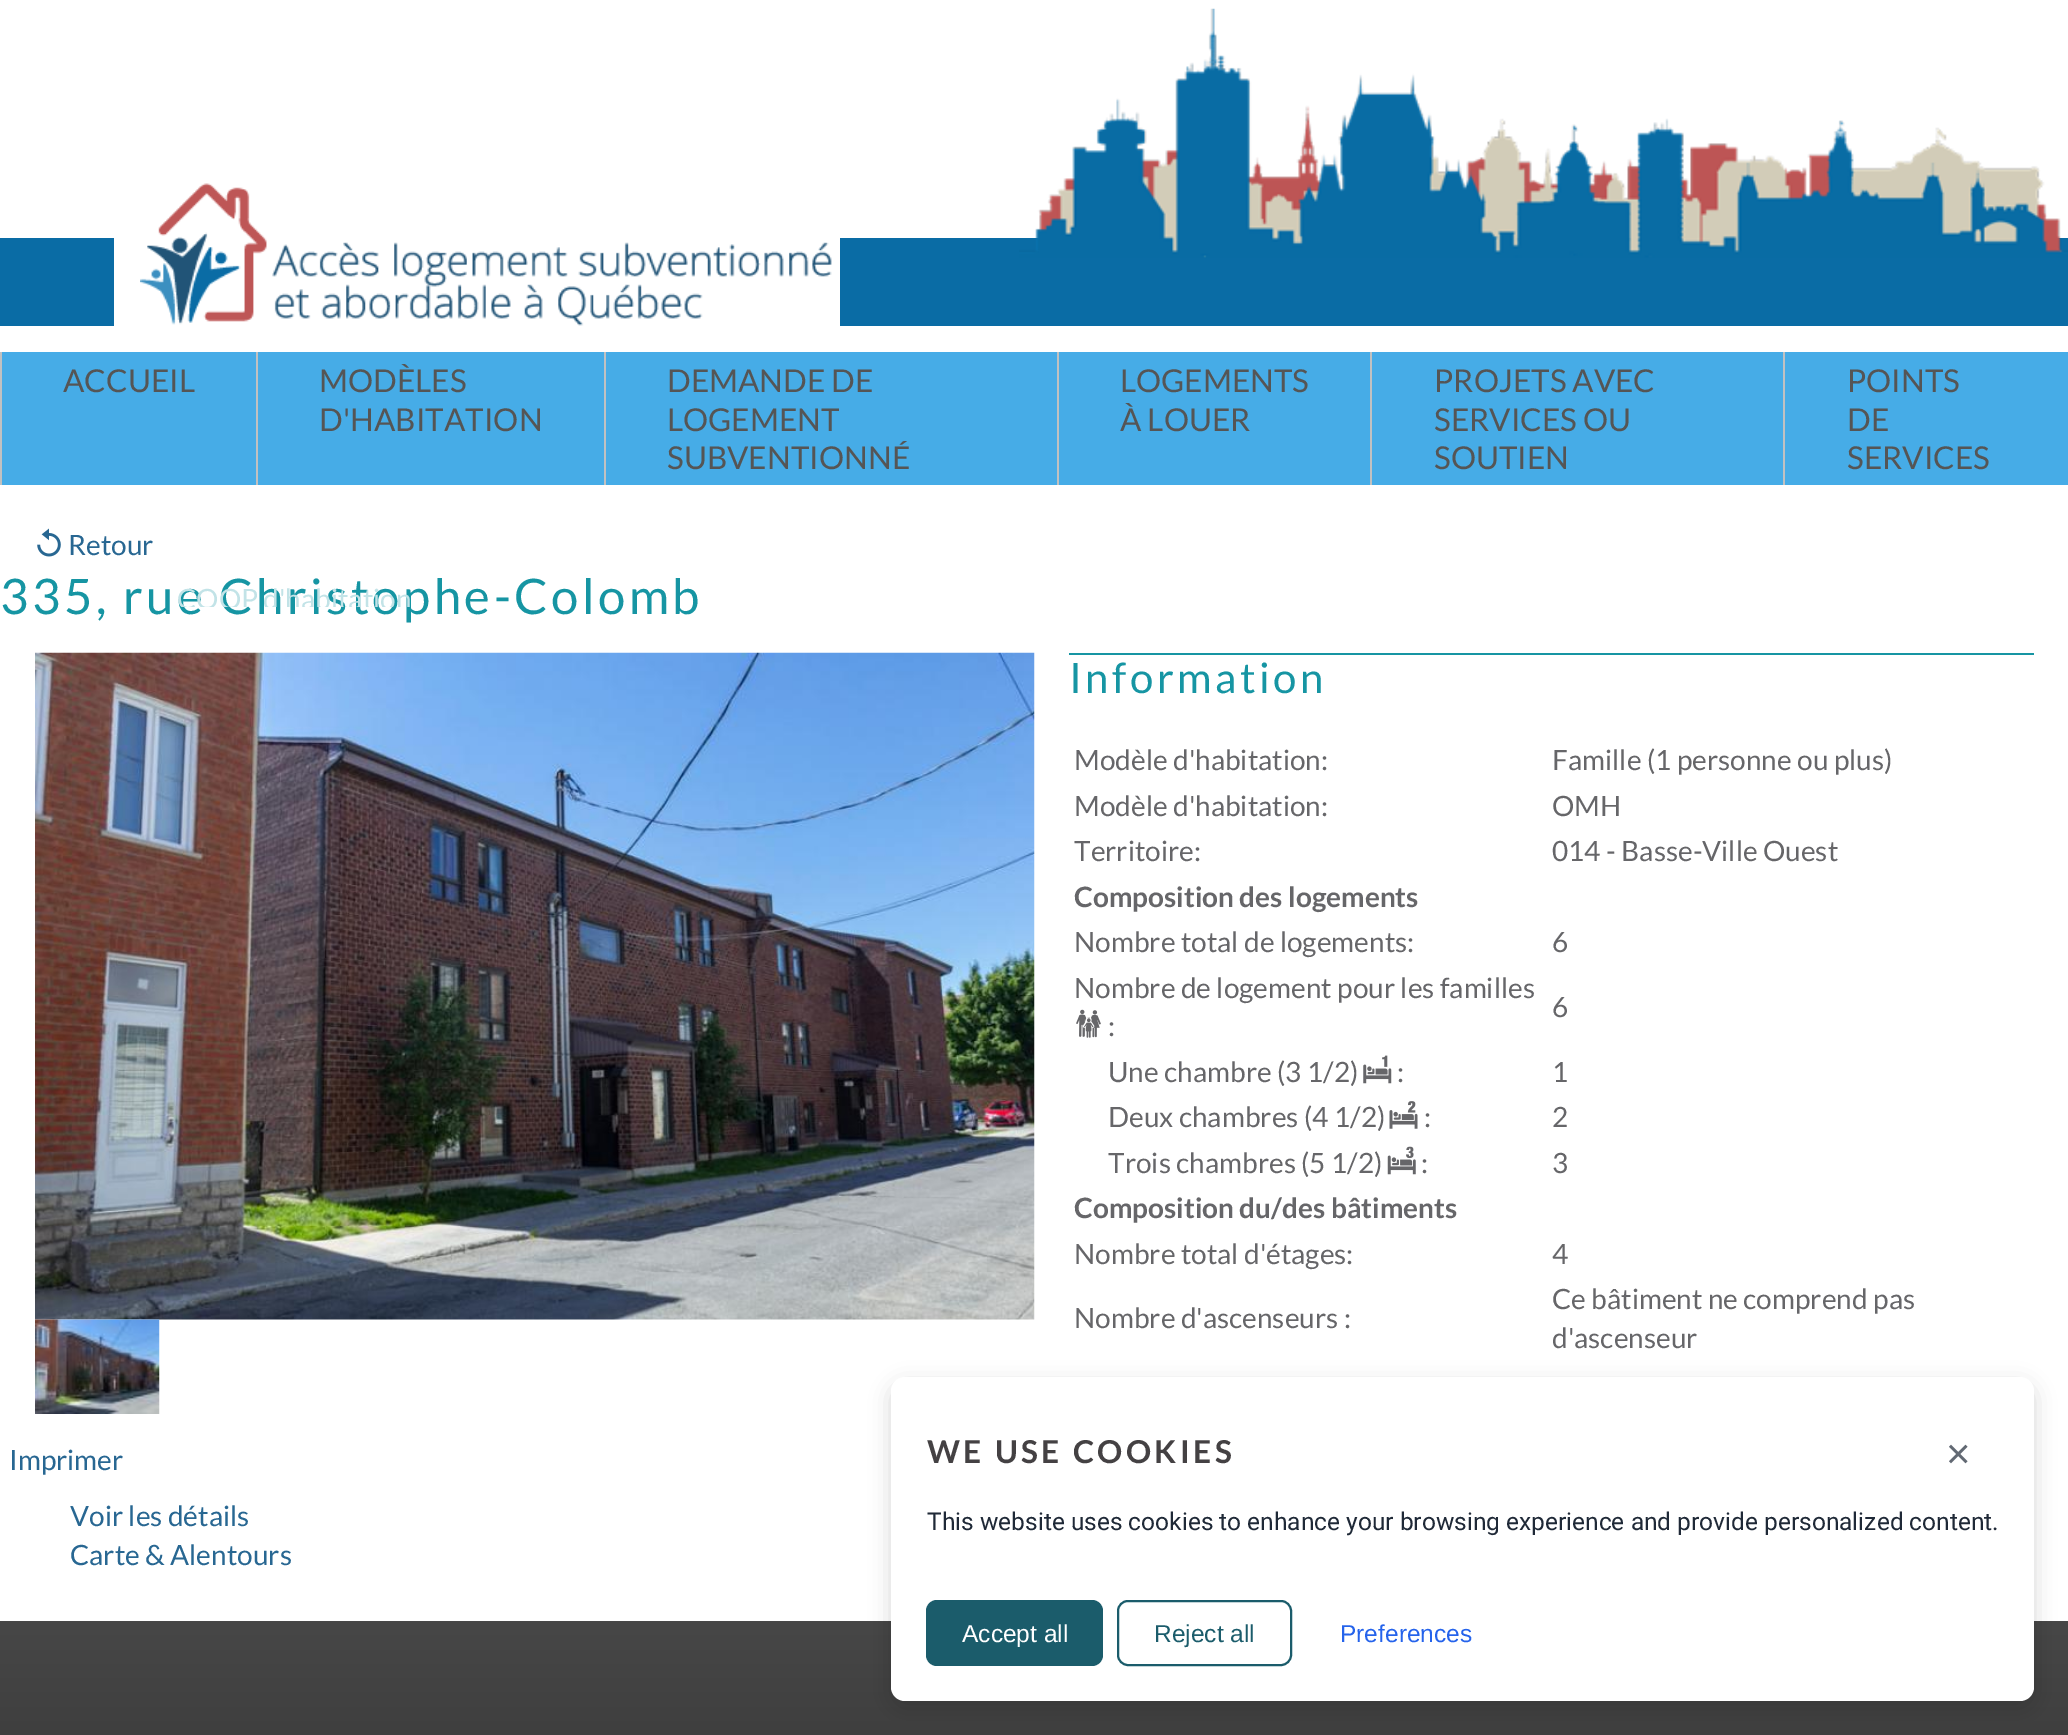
%!PS-Adobe-3.0
%%BoundingBox: 0 0 2068 1735
%%LanguageLevel: 3
%%Pages: 1
%%EndComments
%%BeginProlog
/setalpha { dup .setfillconstantalpha .setstrokeconstantalpha } def
/rrect { 5 dict begin { /r /h /w /y /x } { exch def } forall
  x r add y moveto x w add y 2 copy h add r arct x w add y h add x 1 index r arct
  x y h add x y r arct x y 2 copy exch w add exch r arct closepath end } def
/softshadow { 12 dict begin { /a /b /q /h /w /y /x } { exch def } forall gsave /was 0 def
  9 -2 -9 { dup b mul 4 div /e exch def 1 sub .425 mul 2.718 exch exp 1 add a .99 .min exch div /now exch def
    1 1 now sub 1 was sub div sub setalpha /was now def
    w h .min e 2 mul add 0 gt { x e sub y e sub w e 2 mul add h e 2 mul add
      q e add b .6 mul add w h .min 2 div e add .min 0 .max rrect fill } if } for grestore end } def
/drawimage { 5 dict begin { /h /w /y /x /name } { exch def } forall
  gsave x y translate w h scale
  w h 8 [w 0 0 h 0 0] name (r) file false 3 colorimage grestore end } def
%%EndProlog
%%BeginSetup
<< /PageSize [2068 1735] /PageUsesTransparency true >> setpagedevice
%%EndSetup
%%Page: 1 1
0 .pushpdf14devicefilter
0 1735 translate 1 -1 scale
4 setmiterlimit
1 setgray
0 0 2068 1735 rectfill
0.039 0.424 0.647 setrgbcolor
0 238 114 88 rectfill
(images/1.raw) 140 183 692 143 drawimage
840 238 1228 88 rectfill
(images/2.raw) 1019 8 1049 250 drawimage
0.275 0.675 0.906 setrgbcolor
2 352 2066 133 rectfill
0.757 setgray
0 352 2 133 rectfill
256 352 2 133 rectfill
604 352 2 133 rectfill
1057 352 2 133 rectfill
1370 352 2 133 rectfill
1783 352 2 133 rectfill
(images/3.raw) 37 528 24 29 drawimage
0.086 0.584 0.639 setrgbcolor
1069 653 965 2 rectfill
(images/4.raw) 1076 1009 25 29 drawimage
(images/5.raw) 1363 1055 29 29 drawimage
(images/6.raw) 1389 1101 29 28 drawimage
(images/7.raw) 1387 1146 29 29 drawimage
(images/8.raw) 35 652 1000 668 drawimage
(images/9.raw) 35 1319 125 95 drawimage
gsave newpath 0 1621 moveto 2068 1621 lineto 2068 1735 lineto 0 1735 lineto closepath clip newpath
<< /ShadingType 2 /ColorSpace /DeviceRGB /Coords [1034 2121 1034 1621] /Extend [true true] /Function << /FunctionType 2 /Domain [0 1] /C0 [0.149 0.149 0.149] /C1 [0.278 0.278 0.278] /N 1 >> >> shfill grestore
0 setgray
891 1384 1143 324 14 10.5 0.15 softshadow
1 setgray
891 1377 1143 324 14 rrect fill
0.106 0.361 0.42 setrgbcolor
926 1600 177 66 11 rrect fill
2 setlinewidth
1118 1601 173 64 10 rrect stroke
/Lato-Regular [31.5 0 0 -31.5 0 0] selectfont
0.333 setgray
63 392 moveto (ACCUEIL) show
319 392 moveto (MODÈLES) show
319 431 moveto (D'HABITATION) show
667 392 moveto (DEMANDE DE) show
667 431 moveto (LOGEMENT) show
667 469 moveto (SUBVENTIONNÉ) show
1120 392 moveto (LOGEMENTS) show
1120 431 moveto (À LOUER) show
1434 392 moveto (PROJETS AVEC) show
1434 431 moveto (SERVICES OU) show
1434 469 moveto (SOUTIEN) show
1847 392 moveto (POINTS) show
1847 431 moveto (DE) show
1847 469 moveto (SERVICES) show
/Lato-Regular [28 0 0 -28 0 0] selectfont
0.157 0.404 0.573 setrgbcolor
68 555 moveto (Retour) show
/Lato-Regular [49 0 0 -49 0 0] selectfont
0.086 0.584 0.639 setrgbcolor
0 614 moveto 3.5 0 (335, rue Christophe-Colomb) ashow
gsave
142 537 577 70 rectclip
/Lato-Regular [28 0 0 -28 0 0] selectfont
0.761 0.89 0.906 setrgbcolor
177 609 moveto (COOP d'habitation) show
grestore
/Lato-Regular [42 0 0 -42 0 0] selectfont
1069 693 moveto 3.5 0 (Information) ashow
/Lato-Regular [28 0 0 -28 0 0] selectfont
0.4 0.4 0.412 setrgbcolor
1074 770 moveto (Modèle d'habitation:) show
1552 770 moveto (Famille \(1 personne ou plus\)) show
1074 816 moveto (Modèle d'habitation:) show
1552 816 moveto (OMH) show
1074 861 moveto (Territoire:) show
1552 861 moveto (014 - Basse-Ville Ouest) show
/Lato-Bold [28 0 0 -28 0 0] selectfont
1074 907 moveto (Composition des logements) show
/Lato-Regular [28 0 0 -28 0 0] selectfont
1074 952 moveto (Nombre total de logements:) show
1552 952 moveto (6) show
1074 998 moveto (Nombre de logement pour les familles) show
1108 1036 moveto (:) show
1552 1017 moveto (6) show
1108 1082 moveto (Une chambre \(3 1/2\)) show
1397 1082 moveto (:) show
1552 1082 moveto (1) show
1108 1127 moveto (Deux chambres \(4 1/2\)) show
1424 1127 moveto (:) show
1552 1127 moveto (2) show
1108 1173 moveto (Trois chambres \(5 1/2\)) show
1421 1173 moveto (:) show
1552 1173 moveto (3) show
/Lato-Bold [28 0 0 -28 0 0] selectfont
1074 1218 moveto (Composition du/des bâtiments) show
/Lato-Regular [28 0 0 -28 0 0] selectfont
1074 1264 moveto (Nombre total d'étages:) show
1552 1264 moveto (4) show
1074 1328 moveto (Nombre d'ascenseurs :) show
1552 1309 moveto (Ce bâtiment ne comprend pas) show
1552 1348 moveto (d'ascenseur) show
0.157 0.404 0.573 setrgbcolor
9 1470 moveto (Imprimer) show
70 1526 moveto (Voir les détails) show
70 1565 moveto (Carte & Alentours) show
/Lato-Bold [31.5 0 0 -31.5 0 0] selectfont
0.267 0.255 0.263 setrgbcolor
927 1463 moveto 3.5 0 (WE USE COOKIES) ashow
/Roboto-Regular [24.5 0 0 -24.5 0 0] selectfont
0.122 0.161 0.216 setrgbcolor
927 1530 moveto (This website uses cookies to enhance your browsing experience and provide personalized content.) show
/LiberationSans-Regular [24.5 0 0 -24.5 0 0] selectfont
1 setgray
962 1642 moveto (Accept all) show
0.106 0.361 0.42 setrgbcolor
1154 1642 moveto (Reject all) show
0.145 0.388 0.922 setrgbcolor
1340 1642 moveto (Preferences) show
/LiberationSans-Regular [42 0 0 -42 0 0] selectfont
0.384 0.412 0.451 setrgbcolor
1946 1468 moveto (×) show
.poppdf14devicefilter showpage
%%EOF
